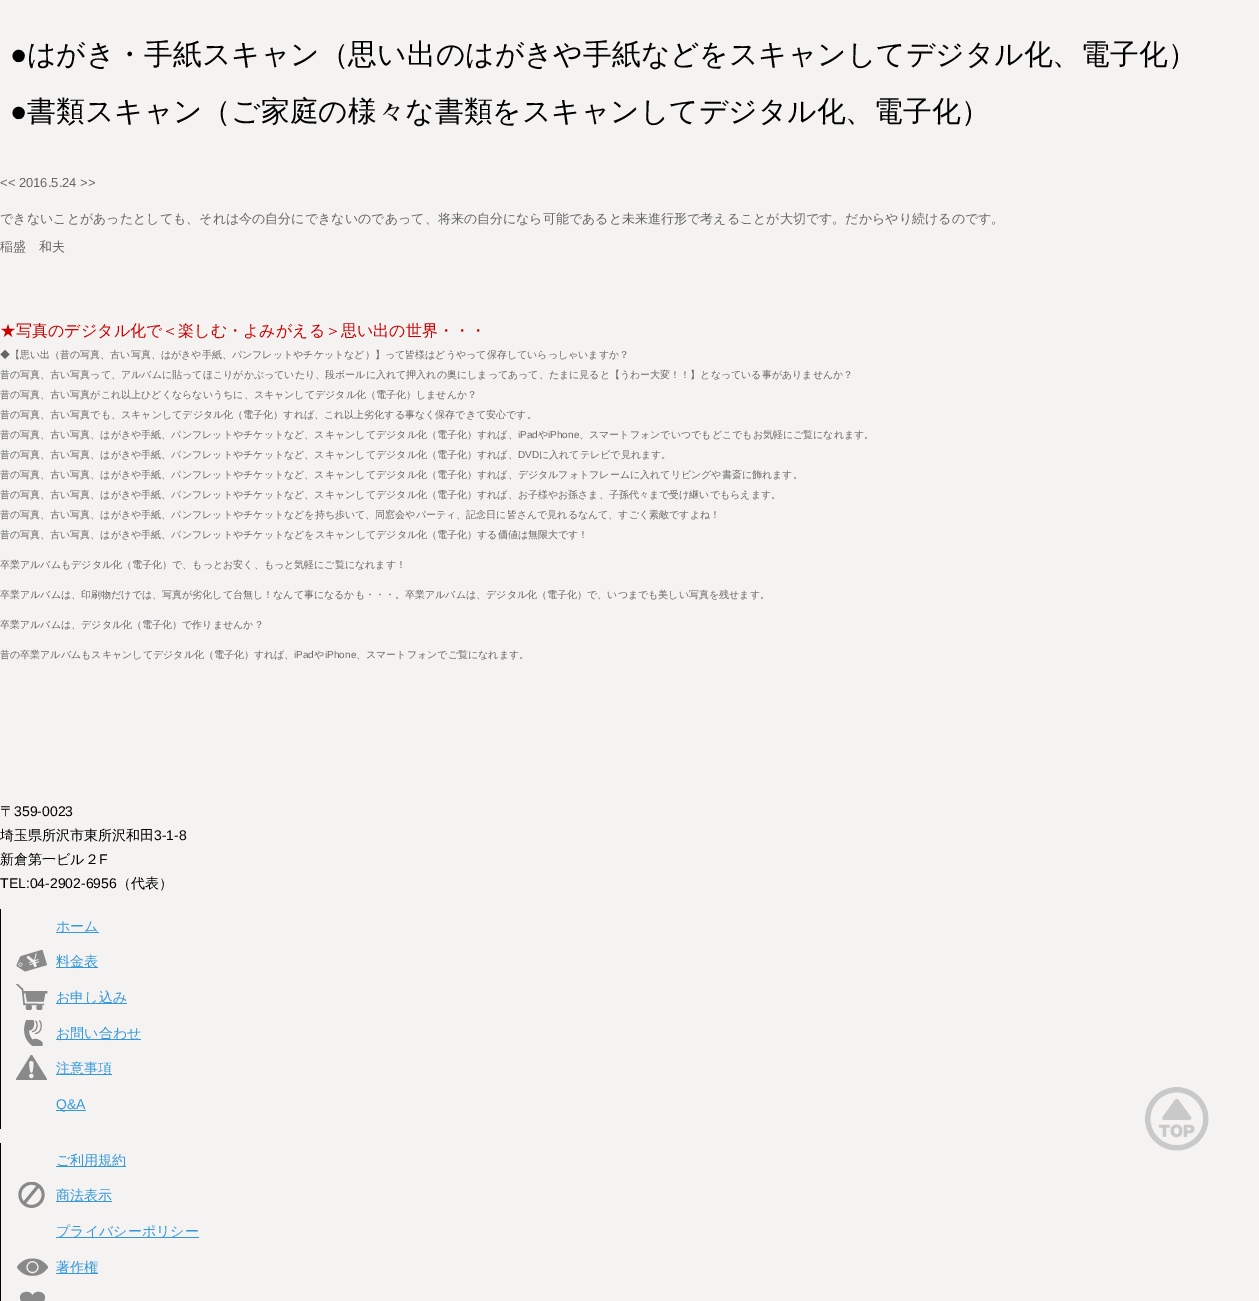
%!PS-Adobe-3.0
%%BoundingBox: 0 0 1259 1301
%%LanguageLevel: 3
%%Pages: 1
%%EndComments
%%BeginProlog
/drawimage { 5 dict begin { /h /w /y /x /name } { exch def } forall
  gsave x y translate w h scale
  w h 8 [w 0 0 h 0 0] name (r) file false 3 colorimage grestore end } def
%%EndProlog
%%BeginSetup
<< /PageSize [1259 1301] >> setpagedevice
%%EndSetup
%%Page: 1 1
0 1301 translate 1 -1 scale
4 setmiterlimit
0.961 0.953 0.949 setrgbcolor
0 0 1259 1301 rectfill
0 setgray
0 909 1 220 rectfill
0.204 0.596 0.859 setrgbcolor
56 932 43 1 rectfill
(images/1.raw) 16 949 31 23 drawimage
56 967 42 1 rectfill
(images/2.raw) 16 984 32 26 drawimage
56 1003 71 1 rectfill
(images/3.raw) 24 1020 19 26 drawimage
56 1039 85 1 rectfill
(images/4.raw) 16 1055 31 25 drawimage
56 1074 56 1 rectfill
56 1110 30 1 rectfill
0 setgray
0 1143 1 158 rectfill
0.204 0.596 0.859 setrgbcolor
56 1166 70 1 rectfill
(images/5.raw) 18 1182 27 26 drawimage
56 1201 56 1 rectfill
56 1237 143 1 rectfill
(images/6.raw) 17 1258 31 18 drawimage
56 1273 42 1 rectfill
(images/7.raw) 20 1291 25 10 drawimage
(images/8.raw) 1145 1087 64 64 drawimage
/LiberationSans-Regular [28.8 0 0 -28.8 0 0] selectfont
0 setgray
10 64 moveto (●) show
/WenQuanYiZenHei-Medium [28.8 0 0 -28.8 0 0] selectfont
27 64 moveto (はがき・手紙スキャン（思い出のはがきや手紙などをスキャンしてデジタル化、電子化）) show
/LiberationSans-Regular [28.8 0 0 -28.8 0 0] selectfont
10 121 moveto (●) show
/WenQuanYiZenHei-Medium [28.8 0 0 -28.8 0 0] selectfont
27 121 moveto (書類スキャン（ご家庭の様々な書類をスキャンしてデジタル化、電子化）) show
/LiberationSans-Regular [13 0 0 -13 0 0] selectfont
0.4 setgray
0 187 moveto (<< 2016.5.24 >>) show
/WenQuanYiZenHei-Medium [13 0 0 -13 0 0] selectfont
0 223 moveto (できないことがあったとしても、それは今の自分にできないのであって、将来の自分になら可能であると未来進行形で考えることが大切です。だからやり続けるのです。) show
0 251 moveto (稲盛　和夫) show
/WenQuanYiZenHei-Medium [16 0 0 -16 0 0] selectfont
0.8 0 0 setrgbcolor
0 336 moveto (★写真のデジタル化で＜楽しむ・よみがえる＞思い出の世界・・・) show
/WenQuanYiZenHei-Medium [10 0 0 -10 0 0] selectfont
0.4 setgray
0 358 moveto (◆【思い出（昔の写真、古い写真、はがきや手紙、パンフレットやチケットなど）】って皆様はどうやって保存していらっしゃいますか？) show
0 378 moveto (昔の写真、古い写真って、アルバムに貼ってほこりがかぶっていたり、段ボールに入れて押入れの奥にしまってあって、たまに見ると【うわー大変！！】となっている事がありませんか？) show
0 398 moveto (昔の写真、古い写真がこれ以上ひどくならないうちに、スキャンしてデジタル化（電子化）しませんか？) show
0 418 moveto (昔の写真、古い写真でも、スキャンしてデジタル化（電子化）すれば、これ以上劣化する事なく保存できて安心です。) show
0 438 moveto (昔の写真、古い写真、はがきや手紙、パンフレットやチケットなど、スキャンしてデジタル化（電子化）すれば、) show
/LiberationSans-Regular [10 0 0 -10 0 0] selectfont
518 438 moveto (iPad) show
/WenQuanYiZenHei-Medium [10 0 0 -10 0 0] selectfont
538 438 moveto (や) show
/LiberationSans-Regular [10 0 0 -10 0 0] selectfont
548 438 moveto (iPhone) show
/WenQuanYiZenHei-Medium [10 0 0 -10 0 0] selectfont
579 438 moveto (、スマートフォンでいつでもどこでもお気軽にご覧になれます。) show
0 458 moveto (昔の写真、古い写真、はがきや手紙、パンフレットやチケットなど、スキャンしてデジタル化（電子化）すれば、) show
/LiberationSans-Regular [10 0 0 -10 0 0] selectfont
518 458 moveto (DVD) show
/WenQuanYiZenHei-Medium [10 0 0 -10 0 0] selectfont
539 458 moveto (に入れてテレビで見れます。) show
0 478 moveto (昔の写真、古い写真、はがきや手紙、パンフレットやチケットなど、スキャンしてデジタル化（電子化）すれば、デジタルフォトフレームに入れてリビングや書斎に飾れます。) show
0 498 moveto (昔の写真、古い写真、はがきや手紙、パンフレットやチケットなど、スキャンしてデジタル化（電子化）すれば、お子様やお孫さま、子孫代々まで受け継いでもらえます。) show
0 518 moveto (昔の写真、古い写真、はがきや手紙、パンフレットやチケットなどを持ち歩いて、同窓会やパーティ、記念日に皆さんで見れるなんて、すごく素敵ですよね！) show
0 538 moveto (昔の写真、古い写真、はがきや手紙、パンフレットやチケットなどをスキャンしてデジタル化（電子化）する価値は無限大です！) show
0 568 moveto (卒業アルバムもデジタル化（電子化）で、もっとお安く、もっと気軽にご覧になれます！) show
0 598 moveto (卒業アルバムは、印刷物だけでは、写真が劣化して台無し！なんて事になるかも・・・。卒業アルバムは、デジタル化（電子化）で、いつまでも美しい写真を残せます。) show
0 628 moveto (卒業アルバムは、デジタル化（電子化）で作りませんか？) show
0 658 moveto (昔の卒業アルバムもスキャンしてデジタル化（電子化）すれば、) show
/LiberationSans-Regular [10 0 0 -10 0 0] selectfont
294 658 moveto (iPad) show
/WenQuanYiZenHei-Medium [10 0 0 -10 0 0] selectfont
314 658 moveto (や) show
/LiberationSans-Regular [10 0 0 -10 0 0] selectfont
325 658 moveto (iPhone) show
/WenQuanYiZenHei-Medium [10 0 0 -10 0 0] selectfont
356 658 moveto (、スマートフォンでご覧になれます。) show
/WenQuanYiZenHei-Medium [14 0 0 -14 0 0] selectfont
0 setgray
0 816 moveto (〒) show
/LiberationSans-Regular [14 0 0 -14 0 0] selectfont
14 816 moveto (359-0023) show
/WenQuanYiZenHei-Medium [14 0 0 -14 0 0] selectfont
0 840 moveto (埼玉県所沢市東所沢和田) show
/LiberationSans-Regular [14 0 0 -14 0 0] selectfont
154 840 moveto (3-1-8) show
/WenQuanYiZenHei-Medium [14 0 0 -14 0 0] selectfont
0 864 moveto (新倉第一ビル２) show
/LiberationSans-Regular [14 0 0 -14 0 0] selectfont
99 864 moveto (F) show
0 888 moveto (TEL:04-2902-6956) show
/WenQuanYiZenHei-Medium [14 0 0 -14 0 0] selectfont
117 888 moveto (（代表）) show
0.204 0.596 0.859 setrgbcolor
56 931 moveto (ホーム) show
56 966 moveto (料金表) show
56 1002 moveto (お申し込み) show
56 1038 moveto (お問い合わせ) show
56 1073 moveto (注意事項) show
/LiberationSans-Regular [14 0 0 -14 0 0] selectfont
56 1109 moveto (Q&A) show
/WenQuanYiZenHei-Medium [14 0 0 -14 0 0] selectfont
56 1165 moveto (ご利用規約) show
56 1200 moveto (商法表示) show
56 1236 moveto (プライバシーポリシー) show
56 1272 moveto (著作権) show
showpage
%%EOF
